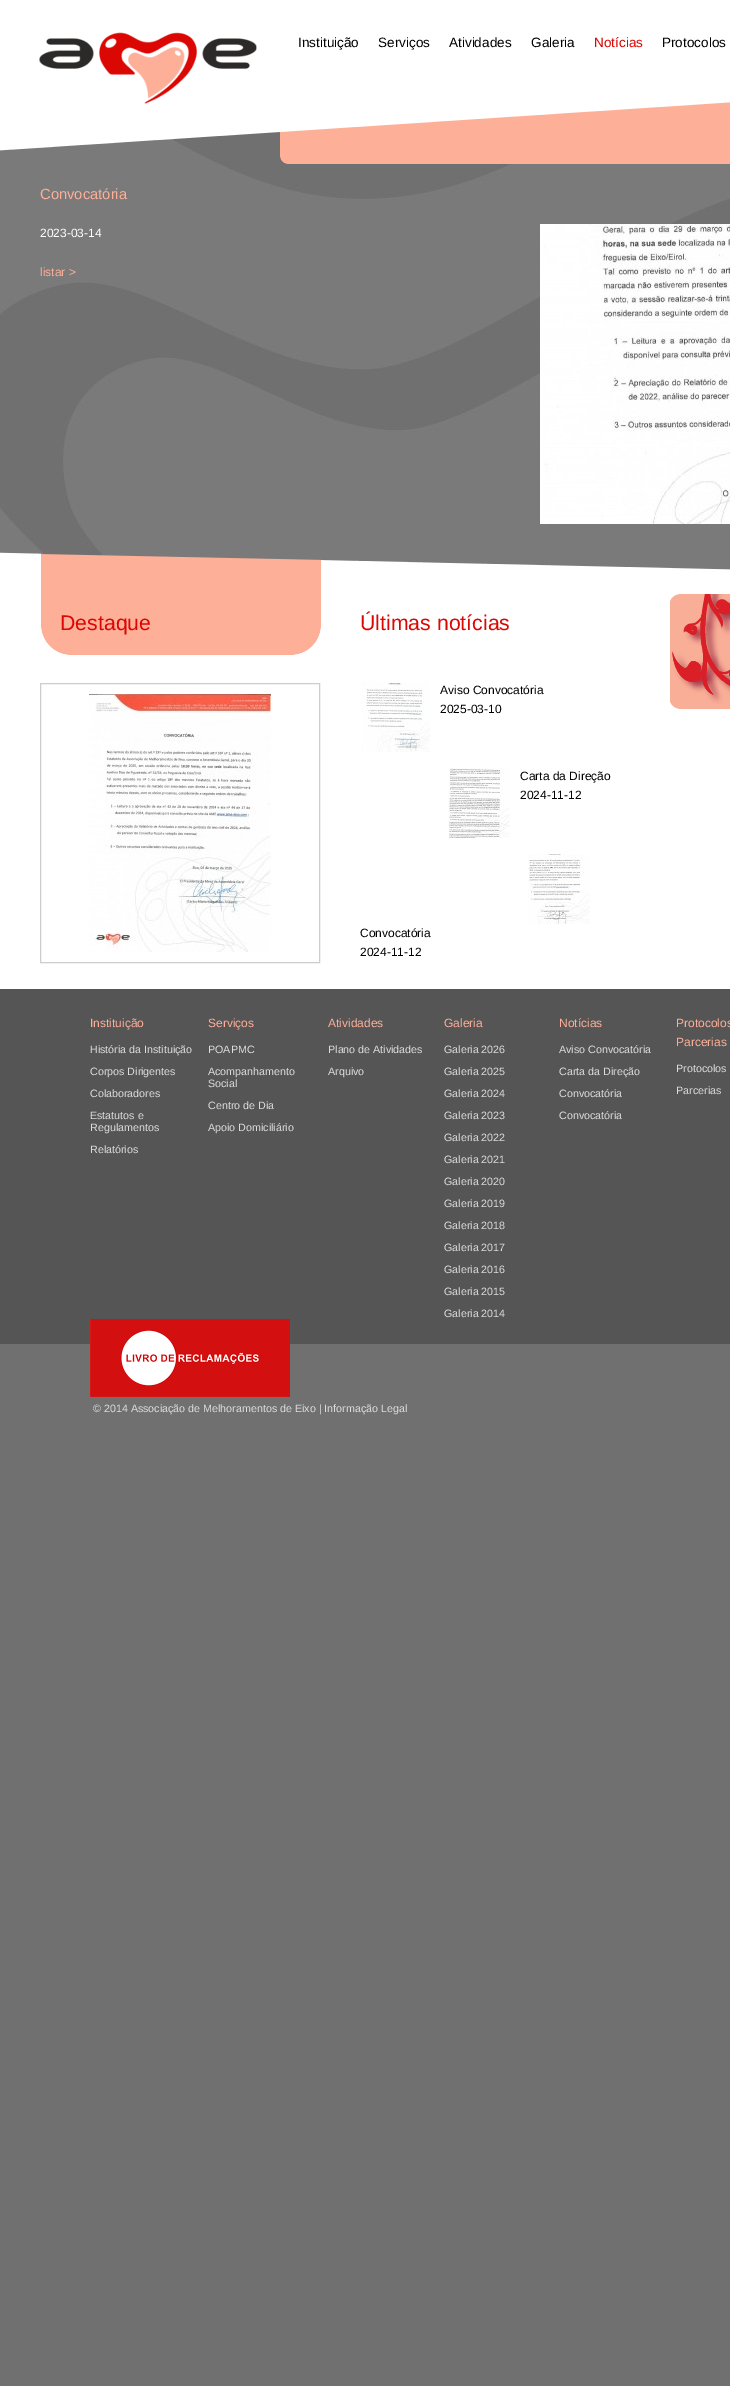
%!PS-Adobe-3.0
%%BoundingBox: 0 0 730 2386
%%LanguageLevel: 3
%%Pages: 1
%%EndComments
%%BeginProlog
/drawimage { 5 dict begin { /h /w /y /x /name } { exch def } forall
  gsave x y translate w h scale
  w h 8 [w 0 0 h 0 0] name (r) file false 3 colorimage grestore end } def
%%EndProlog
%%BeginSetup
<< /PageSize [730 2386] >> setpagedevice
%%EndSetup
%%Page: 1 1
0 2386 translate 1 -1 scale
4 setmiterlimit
0.439 setgray
0 0 730 2386 rectfill
(images/1.raw) 0 132 730 438 drawimage
(images/2.raw) 0 0 730 151 drawimage
(images/3.raw) 280 102 450 62 drawimage
(images/4.raw) 540 224 190 300 drawimage
(images/5.raw) 0 552 730 792 drawimage
0.804 setgray
40.5 683.5 279 279 rectstroke
(images/6.raw) 89 694 182 258 drawimage
(images/7.raw) 361 682 69 70 drawimage
(images/8.raw) 448 768 62 70 drawimage
(images/9.raw) 528 854 62 70 drawimage
(images/10.raw) 670 594 60 115 drawimage
(images/11.raw) 90 1319 200 78 drawimage
/LiberationSans-Regular [13.5 0 0 -13.5 0 0] selectfont
0 setgray
298 47 moveto (Instituição) show
378 47 moveto (Serviços) show
449 47 moveto (Atividades) show
531 47 moveto (Galeria) show
0.859 0.027 0.012 setrgbcolor
594 47 moveto (Notícias) show
0 setgray
662 47 moveto (Protocolos) show
/LiberationSans-Regular [14.75 0 0 -14.75 0 0] selectfont
0.992 0.686 0.596 setrgbcolor
40 199 moveto (Convocatória) show
/LiberationSans-Regular [12 0 0 -12 0 0] selectfont
1 setgray
40 237 moveto (2023-03-14) show
0.992 0.686 0.596 setrgbcolor
40 276 moveto (listar >) show
/LiberationSans-Regular [21.25 0 0 -21.25 0 0] selectfont
0.859 0.027 0.012 setrgbcolor
60 630 moveto (Destaque) show
360 630 moveto (Últimas notícias) show
/LiberationSans-Regular [12 0 0 -12 0 0] selectfont
0 setgray
440 694 moveto (Aviso Convocatória) show
440 713 moveto (2025-03-10) show
520 780 moveto (Carta da Direção) show
520 799 moveto (2024-11-12) show
360 937 moveto (Convocatória) show
360 956 moveto (2024-11-12) show
0.992 0.686 0.596 setrgbcolor
90 1027 moveto (Instituição) show
/LiberationSans-Regular [10.7 0 0 -10.7 0 0] selectfont
0.867 setgray
90 1053 moveto (História da Instituição) show
90 1075 moveto (Corpos Dirigentes) show
90 1097 moveto (Colaboradores) show
90 1119 moveto (Estatutos e) show
90 1131 moveto (Regulamentos) show
90 1153 moveto (Relatórios) show
/LiberationSans-Regular [12 0 0 -12 0 0] selectfont
0.992 0.686 0.596 setrgbcolor
208 1027 moveto (Serviços) show
/LiberationSans-Regular [10.7 0 0 -10.7 0 0] selectfont
0.867 setgray
208 1053 moveto (POAPMC) show
208 1075 moveto (Acompanhamento) show
208 1087 moveto (Social) show
208 1109 moveto (Centro de Dia) show
208 1131 moveto (Apoio Domiciliário) show
/LiberationSans-Regular [12 0 0 -12 0 0] selectfont
0.992 0.686 0.596 setrgbcolor
328 1027 moveto (Atividades) show
/LiberationSans-Regular [10.7 0 0 -10.7 0 0] selectfont
0.867 setgray
328 1053 moveto (Plano de Atividades) show
328 1075 moveto (Arquivo) show
/LiberationSans-Regular [12 0 0 -12 0 0] selectfont
0.992 0.686 0.596 setrgbcolor
444 1027 moveto (Galeria) show
/LiberationSans-Regular [10.7 0 0 -10.7 0 0] selectfont
0.867 setgray
444 1053 moveto (Galeria 2026) show
444 1075 moveto (Galeria 2025) show
444 1097 moveto (Galeria 2024) show
444 1119 moveto (Galeria 2023) show
444 1141 moveto (Galeria 2022) show
444 1163 moveto (Galeria 2021) show
444 1185 moveto (Galeria 2020) show
444 1207 moveto (Galeria 2019) show
444 1229 moveto (Galeria 2018) show
444 1251 moveto (Galeria 2017) show
444 1273 moveto (Galeria 2016) show
444 1295 moveto (Galeria 2015) show
444 1317 moveto (Galeria 2014) show
/LiberationSans-Regular [12 0 0 -12 0 0] selectfont
0.992 0.686 0.596 setrgbcolor
559 1027 moveto (Notícias) show
/LiberationSans-Regular [10.7 0 0 -10.7 0 0] selectfont
0.867 setgray
559 1053 moveto (Aviso Convocatória) show
559 1075 moveto (Carta da Direção) show
559 1097 moveto (Convocatória) show
559 1119 moveto (Convocatória) show
/LiberationSans-Regular [12 0 0 -12 0 0] selectfont
0.992 0.686 0.596 setrgbcolor
676 1027 moveto 49 0 32 (Protocolos) widthshow
676 1046 moveto (Parcerias) show
/LiberationSans-Regular [10.7 0 0 -10.7 0 0] selectfont
0.867 setgray
676 1072 moveto (Protocolos) show
676 1094 moveto (Parcerias) show
93 1412 moveto (© 2014 Associação de Melhoramentos de Eixo | Informação Legal) show
showpage
%%EOF
